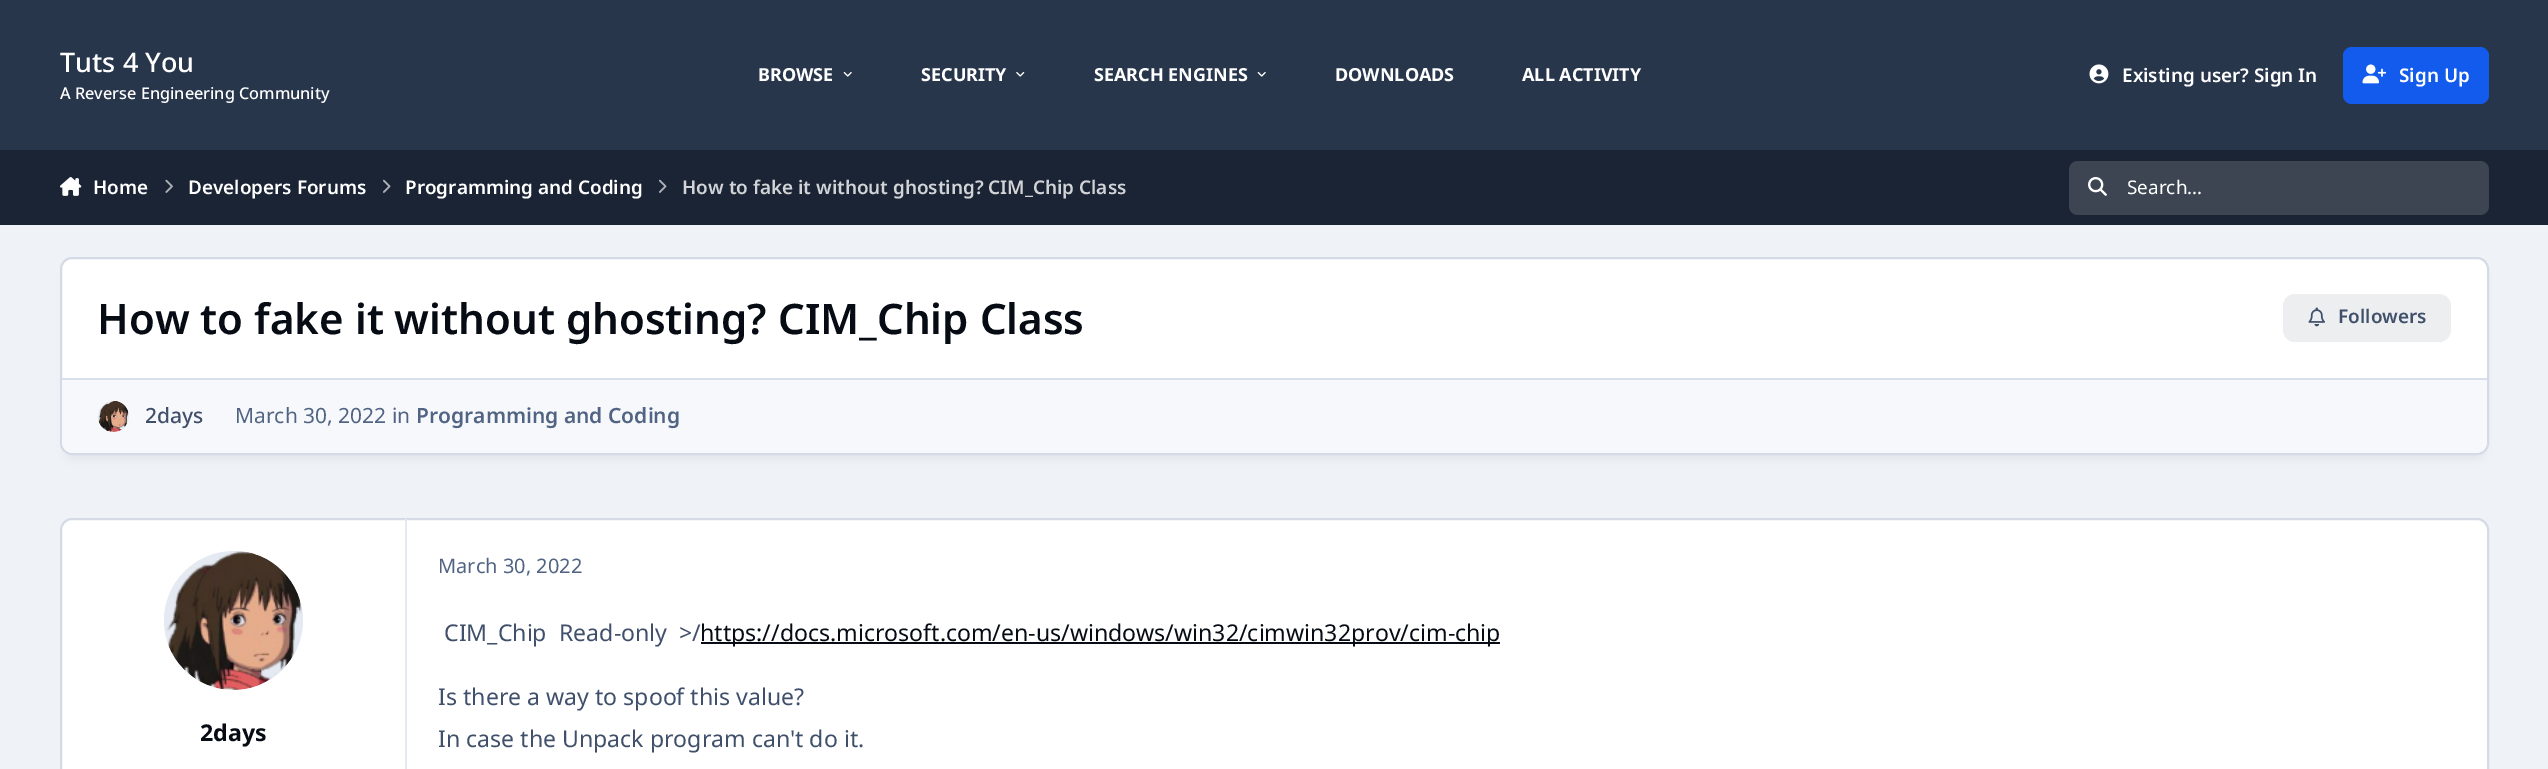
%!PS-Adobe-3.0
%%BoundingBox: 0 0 2548 769
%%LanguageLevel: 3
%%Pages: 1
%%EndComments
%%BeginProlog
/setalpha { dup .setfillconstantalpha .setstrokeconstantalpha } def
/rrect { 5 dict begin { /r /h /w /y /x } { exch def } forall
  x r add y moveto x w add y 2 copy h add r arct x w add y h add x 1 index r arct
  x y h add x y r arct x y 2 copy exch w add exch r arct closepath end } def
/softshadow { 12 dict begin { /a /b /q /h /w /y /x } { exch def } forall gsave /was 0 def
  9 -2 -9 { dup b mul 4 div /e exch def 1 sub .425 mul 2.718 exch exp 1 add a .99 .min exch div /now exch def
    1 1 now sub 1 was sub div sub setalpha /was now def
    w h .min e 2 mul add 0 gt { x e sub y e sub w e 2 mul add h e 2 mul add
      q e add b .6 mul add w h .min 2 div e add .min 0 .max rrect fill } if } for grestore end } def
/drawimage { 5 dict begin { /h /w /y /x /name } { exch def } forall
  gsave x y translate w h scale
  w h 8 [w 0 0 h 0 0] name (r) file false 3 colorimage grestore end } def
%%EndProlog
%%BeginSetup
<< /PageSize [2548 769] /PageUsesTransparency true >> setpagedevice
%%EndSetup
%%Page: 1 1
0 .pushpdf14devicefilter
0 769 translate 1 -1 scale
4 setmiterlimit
0.937 0.949 0.969 setrgbcolor
0 0 2548 769 rectfill
0.157 0.212 0.298 setrgbcolor
0 0 2548 150 rectfill
(images/1.raw) 843 72 9 5 drawimage
(images/2.raw) 1016 72 9 5 drawimage
(images/1.raw) 1257 72 9 5 drawimage
(images/3.raw) 2089 64 20 20 drawimage
0.075 0.357 0.925 setrgbcolor
2343 47 146 57 9 rrect fill
(images/4.raw) 2362 64 25 20 drawimage
0.106 0.141 0.204 setrgbcolor
0 150 2548 75 rectfill
(images/5.raw) 60 177 22 19 drawimage
(images/6.raw) 165 179 8 14 drawimage
(images/7.raw) 383 179 8 14 drawimage
(images/7.raw) 659 179 8 14 drawimage
0.239 0.271 0.322 setrgbcolor
2069 161 420 54 9 rrect fill
(images/8.raw) 2088 177 19 19 drawimage
0.004 0.012 0.039 setrgbcolor
65 270 2419 189 8 5 0.05 softshadow
1 setgray
61 258 2427 196 11 rrect gsave fill grestore
0.835 0.859 0.902 setrgbcolor
2 setlinewidth
stroke
0.925 0.933 0.941 setrgbcolor
2283 294 168 48 12 rrect fill
(images/9.raw) 2308 307 17 20 drawimage
0.969 0.973 0.984 setrgbcolor
newpath 62 378 moveto 2487 378 lineto 2487 441 lineto 2487 447.5 2481.5 453 2475 453 curveto 74 453 lineto 67.5 453 62 447.5 62 441 curveto closepath fill
0.843 0.875 0.918 setrgbcolor
62 378 2425 2 rectfill
0.898 0.918 0.949 setrgbcolor
newpath 113.5 416.5 15.5 0 360 arc closepath fill
(images/10.raw) 98 401 31 31 drawimage
1 setgray
61 519 2427 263 11 rrect gsave fill grestore
0.835 0.859 0.902 setrgbcolor
stroke
0.898 0.918 0.949 setrgbcolor
405 519 2 250 rectfill
newpath 233.5 620.5 69.5 0 360 arc closepath fill
(images/11.raw) 166 551 136 139 drawimage
0.024 0.043 0.078 setrgbcolor
701 642 799 2 rectfill
/NotoSans-Medium [27 0 0 -27 0 0] selectfont
1 setgray
60 72 moveto (Tuts 4 You) show
/NotoSans-Medium [16.25 0 0 -16.25 0 0] selectfont
60 99 moveto (A Reverse Engineering Community) show
/NotoSans-Bold [18 0 0 -18 0 0] selectfont
758 81 moveto (BROWSE) show
921 81 moveto (SECURITY) show
1094 81 moveto (SEARCH ENGINES) show
1335 81 moveto (DOWNLOADS) show
1522 81 moveto (ALL ACTIVITY) show
/NotoSans-SemiBold [18.9 0 0 -18.9 0 0] selectfont
2122 82 moveto (Existing user? Sign In) show
2399 82 moveto (Sign Up) show
93 194 moveto (Home) show
188 194 moveto (Developers Forums) show
405 194 moveto (Programming and Coding) show
0.82 0.827 0.839 setrgbcolor
682 194 moveto (How to fake it without ghosting? CIM_Chip Class) show
/NotoSans-Regular [18.9 0 0 -18.9 0 0] selectfont
1 setgray
2127 194 moveto (Search...) show
/NotoSans-SemiBold [42 0 0 -42 0 0] selectfont
0.024 0.043 0.078 setrgbcolor
97 334 moveto (How to fake it without ghosting? CIM_Chip Class) show
/NotoSans-SemiBold [18.9 0 0 -18.9 0 0] selectfont
0.251 0.314 0.42 setrgbcolor
2338 323 moveto (Followers) show
/NotoSans-Medium [21 0 0 -21 0 0] selectfont
145 423 moveto (2days) show
/NotoSans-Regular [21 0 0 -21 0 0] selectfont
0.318 0.392 0.514 setrgbcolor
235 423 moveto (March 30, 2022 in) show
/NotoSans-SemiBold [21 0 0 -21 0 0] selectfont
416 423 moveto (Programming and Coding) show
/NotoSans-Bold [23.1 0 0 -23.1 0 0] selectfont
0.024 0.043 0.078 setrgbcolor
200 741 moveto (2days) show
/NotoSans-Regular [20 0 0 -20 0 0] selectfont
0.318 0.392 0.514 setrgbcolor
438 573 moveto (March 30, 2022) show
/NotoSans-Regular [23.1 0 0 -23.1 0 0] selectfont
0.251 0.314 0.42 setrgbcolor
444 641 moveto (CIM_Chip) show
559 641 moveto (Read-only  >/) show
0.024 0.043 0.078 setrgbcolor
700 641 moveto (https://docs.microsoft.com/en-us/windows/win32/cimwin32prov/cim-chip) show
0.251 0.314 0.42 setrgbcolor
438 705 moveto (Is there a way to spoof this value?) show
438 747 moveto (In case the Unpack program can't do it.) show
.poppdf14devicefilter showpage
%%EOF
